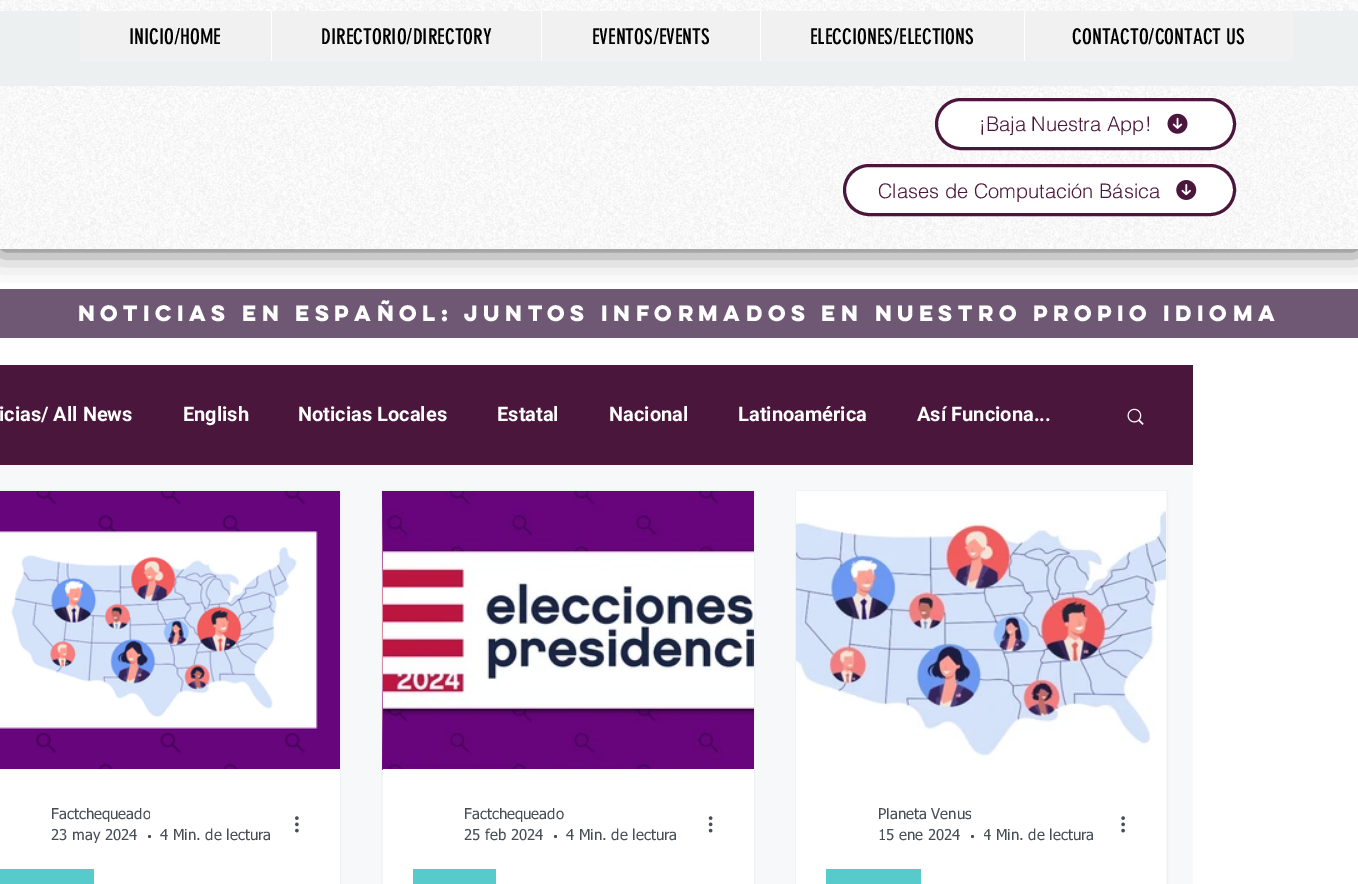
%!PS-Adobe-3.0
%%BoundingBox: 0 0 1358 884
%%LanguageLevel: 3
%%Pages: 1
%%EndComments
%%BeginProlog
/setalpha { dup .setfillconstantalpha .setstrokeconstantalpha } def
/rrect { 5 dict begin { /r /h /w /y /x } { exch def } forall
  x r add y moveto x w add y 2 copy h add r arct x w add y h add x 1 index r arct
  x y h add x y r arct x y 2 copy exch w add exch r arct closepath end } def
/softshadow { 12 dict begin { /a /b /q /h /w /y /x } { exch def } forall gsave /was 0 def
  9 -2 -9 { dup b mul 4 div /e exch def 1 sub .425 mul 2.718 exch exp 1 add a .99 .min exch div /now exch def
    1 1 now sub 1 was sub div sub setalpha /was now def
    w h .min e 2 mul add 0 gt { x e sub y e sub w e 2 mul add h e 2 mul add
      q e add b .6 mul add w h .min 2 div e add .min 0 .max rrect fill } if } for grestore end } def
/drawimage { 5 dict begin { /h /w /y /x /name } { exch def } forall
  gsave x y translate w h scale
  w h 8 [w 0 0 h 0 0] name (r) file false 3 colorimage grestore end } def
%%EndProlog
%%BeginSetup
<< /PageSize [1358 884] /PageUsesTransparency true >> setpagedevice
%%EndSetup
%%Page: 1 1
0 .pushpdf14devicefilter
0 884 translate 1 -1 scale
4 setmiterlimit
1 setgray
0 0 1358 884 rectfill
0.431 0.345 0.455 setrgbcolor
0 289 1358 49 rectfill
0 setgray
0 0 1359 249 0 15 0.7 softshadow
1 setgray
0 0 1358 249 rectfill
(images/1.raw) 0 0 1358 249 drawimage
0.925 0.941 0.945 setrgbcolor
0 11 1358 75 rectfill
0.945 setgray
80 11 1213 50 rectfill
1 setgray
271 11 1 50 rectfill
541 11 1 50 rectfill
760 11 1 50 rectfill
1024 11 1 50 rectfill
936.5 99.5 298 49 24.5 rrect gsave fill grestore
0.29 0.086 0.231 setrgbcolor
3 setlinewidth
stroke
(images/2.raw) 1167 113 21 21 drawimage
1 setgray
844.5 165.5 390 49 24.5 rrect gsave fill grestore
0.29 0.086 0.231 setrgbcolor
stroke
(images/3.raw) 1176 180 21 20 drawimage
0.965 0.973 0.976 setrgbcolor
0 465 1193 419 rectfill
0.29 0.086 0.231 setrgbcolor
0 365 1193 100 rectfill
(images/4.raw) 1127 408 17 17 drawimage
0.937 0.949 0.953 setrgbcolor
1 setlinewidth
-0.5 490.5 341 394 rectstroke
(images/5.raw) 0 491 340 278 drawimage
1 setgray
0 769 340 115 rectfill
0.282 0.302 0.337 setrgbcolor
newpath 149.5 836.5 1.5 0 360 arc closepath fill
(images/6.raw) 295 816 4 17 drawimage
0.341 0.796 0.796 setrgbcolor
0 869 94 15 rectfill
0.937 0.949 0.953 setrgbcolor
381.5 490.5 373 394 rectstroke
(images/7.raw) 382 491 1 279 drawimage
(images/8.raw) 383 491 371 278 drawimage
1 setgray
383 769 371 115 rectfill
0.282 0.302 0.337 setrgbcolor
newpath 555.5 836.5 1.5 0 360 arc closepath fill
(images/9.raw) 708 816 5 17 drawimage
0.341 0.796 0.796 setrgbcolor
413 869 83 15 rectfill
0.937 0.949 0.953 setrgbcolor
795.5 490.5 372 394 rectstroke
(images/10.raw) 796 491 370 278 drawimage
1 setgray
796 769 370 115 rectfill
0.282 0.302 0.337 setrgbcolor
newpath 972.5 836.5 1.5 0 360 arc closepath fill
(images/11.raw) 1121 816 4 17 drawimage
0.341 0.796 0.796 setrgbcolor
826 869 95 15 rectfill
/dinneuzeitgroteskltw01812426-Regular [21.25 0 0 -21.25 0 0] selectfont
0 setgray
129 44 moveto (INICIO/HOME) show
321 44 moveto (DIRECTORIO/DIRECTORY) show
592 44 moveto (EVENTOS/EVENTS) show
810 44 moveto (ELECCIONES/ELECTIONS) show
1072 44 moveto (CONTACTO/CONTACT US) show
/helvetica-Light [20 0 0 -20 0 0] selectfont
0.29 0.086 0.231 setrgbcolor
979 131 moveto (¡Baja Nuestra App!) show
878 198 moveto (Clases de Computación Básica) show
/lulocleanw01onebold-Bold [20 0 0 -20 0 0] selectfont
1 setgray
78 321 moveto 1 0 (NOTICIAS EN ESPAÑOL: JUNTOS INFORMADOS EN NUESTRO PROPIO IDIOMA) ashow
/Roboto-Bold [20 0 0 -20 0 0] selectfont
-1 421 moveto (icias/ All News) show
183 421 moveto (English) show
298 421 moveto (Noticias Locales) show
497 421 moveto (Estatal) show
609 421 moveto (Nacional) show
738 421 moveto (Latinoamérica) show
917 421 moveto (Así Funciona...) show
gsave
51 808 99 17 rectclip
/tahoma-Regular [15 0 0 -15 0 0] selectfont
0.282 0.302 0.337 setrgbcolor
51 819 moveto (Factchequeado) show
grestore
/tahoma-Regular [15 0 0 -15 0 0] selectfont
0.282 0.302 0.337 setrgbcolor
51 840 moveto (23 may 2024) show
160 840 moveto (4 Min. de lectura) show
gsave
465 808 99 17 rectclip
464 819 moveto (Factchequeado) show
grestore
464 840 moveto (25 feb 2024) show
566 840 moveto (4 Min. de lectura) show
gsave
879 808 92 17 rectclip
878 819 moveto (Planeta Venus) show
grestore
878 840 moveto (15 ene 2024) show
gsave
984 828 111 17 rectclip
983 840 moveto (4 Min. de lectura) show
grestore
.poppdf14devicefilter showpage
%%EOF
